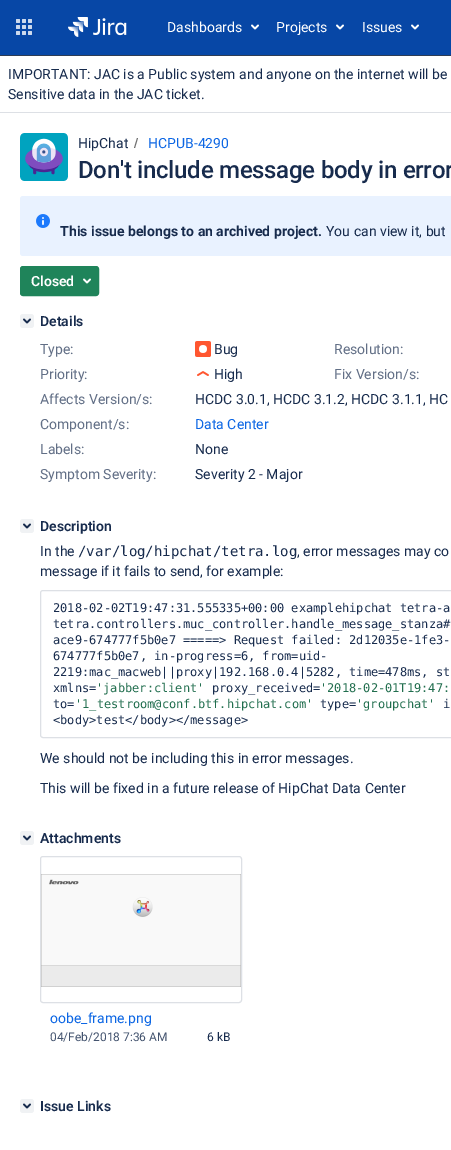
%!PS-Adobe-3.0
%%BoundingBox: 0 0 451 1150
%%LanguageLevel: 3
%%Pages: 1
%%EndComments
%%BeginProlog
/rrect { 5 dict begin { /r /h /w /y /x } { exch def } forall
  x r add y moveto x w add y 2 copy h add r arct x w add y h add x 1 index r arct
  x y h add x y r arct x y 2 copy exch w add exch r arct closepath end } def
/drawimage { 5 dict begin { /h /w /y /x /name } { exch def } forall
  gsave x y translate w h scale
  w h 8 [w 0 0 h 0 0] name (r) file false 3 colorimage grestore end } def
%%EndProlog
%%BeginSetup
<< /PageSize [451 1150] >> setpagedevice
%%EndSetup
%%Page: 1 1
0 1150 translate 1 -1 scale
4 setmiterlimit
1 setgray
0 0 451 1150 rectfill
0.027 0.278 0.651 setrgbcolor
0 0 451 55 rectfill
0.18 0.239 0.329 setrgbcolor
0 55 451 1 rectfill
(images/1.raw) 16 19 16 16 drawimage
(images/2.raw) 68 17 59 20 drawimage
(images/3.raw) 251 24 8 6 drawimage
(images/3.raw) 336 24 8 6 drawimage
(images/3.raw) 411 24 8 6 drawimage
0.867 0.878 0.898 setrgbcolor
0 112 451 1 rectfill
(images/4.raw) 20 133 48 48 drawimage
0.439 setgray
newpath 135 148 moveto 138 138 lineto 137 138 lineto 134 148 lineto closepath fill
0.914 0.949 1 setrgbcolor
20 196 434 60 3 rrect fill
(images/5.raw) 36 214 14 14 drawimage
0.122 0.518 0.353 setrgbcolor
20.5 266.5 78 29 2.5 rrect gsave fill grestore
stroke
(images/6.raw) 83 278 8 6 drawimage
0.941 0.949 0.957 setrgbcolor
20 314 14 14 3 rrect fill
(images/7.raw) 23 318 8 6 drawimage
(images/8.raw) 195 341 16 16 drawimage
(images/9.raw) 197 371 12 5 drawimage
20 519 14 14 3 rrect fill
(images/7.raw) 23 523 8 6 drawimage
0.867 0.878 0.898 setrgbcolor
40.5 590.5 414 147 2.5 rrect stroke
0.941 0.949 0.957 setrgbcolor
20 831 14 14 3 rrect fill
(images/7.raw) 23 835 8 6 drawimage
0.867 0.878 0.898 setrgbcolor
40.5 856.5 201 146 2.5 rrect stroke
(images/10.raw) 41 874 200 113 drawimage
0.941 0.949 0.957 setrgbcolor
20 1099 14 14 3 rrect fill
(images/7.raw) 23 1103 8 6 drawimage
/Roboto-Regular [14 0 0 -14 0 0] selectfont
1 setgray
167 32 moveto (Dashboards) show
276 32 moveto (Projects) show
362 32 moveto (Issues) show
0.09 0.169 0.302 setrgbcolor
8 79 moveto (IMPORTANT: JAC is a Public system and anyone on the internet will be) show
8 99 moveto (Sensitive data in the JAC ticket.) show
78 148 moveto (HipChat) show
0.047 0.4 0.894 setrgbcolor
148 148 moveto (HCPUB-4290) show
/Roboto-Medium [24 0 0 -24 0 0] selectfont
0.09 0.169 0.302 setrgbcolor
78 178 moveto -0.25 0 (Don't include message body in error) ashow
/Roboto-Bold [14 0 0 -14 0 0] selectfont
60 236 moveto (This issue belongs to an archived project.) show
/Roboto-Regular [14 0 0 -14 0 0] selectfont
326 236 moveto (You can view it, but) show
/Roboto-SemiBold [14 0 0 -14 0 0] selectfont
1 setgray
31 286 moveto (Closed) show
0.09 0.169 0.302 setrgbcolor
40 326 moveto (Details) show
/Roboto-Regular [14 0 0 -14 0 0] selectfont
0.384 0.435 0.525 setrgbcolor
40 354 moveto (Type:) show
0.09 0.169 0.302 setrgbcolor
214 354 moveto (Bug) show
0.384 0.435 0.525 setrgbcolor
334 354 moveto (Resolution:) show
40 379 moveto (Priority:) show
0.09 0.169 0.302 setrgbcolor
214 379 moveto (High) show
0.384 0.435 0.525 setrgbcolor
334 379 moveto (Fix Version/s:) show
40 404 moveto (Affects Version/s:) show
0.09 0.169 0.302 setrgbcolor
195 404 moveto (HCDC 3.0.1, HCDC 3.1.2, HCDC 3.1.1, HC) show
0.384 0.435 0.525 setrgbcolor
40 429 moveto (Component/s:) show
0.047 0.4 0.894 setrgbcolor
195 429 moveto (Data Center) show
0.384 0.435 0.525 setrgbcolor
40 454 moveto (Labels:) show
0.09 0.169 0.302 setrgbcolor
195 454 moveto (None) show
0.384 0.435 0.525 setrgbcolor
40 479 moveto (Symptom Severity:) show
0.09 0.169 0.302 setrgbcolor
195 479 moveto (Severity 2 - Major) show
/Roboto-SemiBold [14 0 0 -14 0 0] selectfont
40 531 moveto (Description) show
/Roboto-Regular [14 0 0 -14 0 0] selectfont
40 556 moveto (In the) show
/DejaVuSansMono-Regular [14 0 0 -14 0 0] selectfont
78 556 moveto (/var/log/hipchat/tetra.log) show
/Roboto-Regular [14 0 0 -14 0 0] selectfont
297 556 moveto (, error messages may co) show
40 576 moveto (message if it fails to send, for example:) show
/DejaVuSansMono-Regular [12 0 0 -12 0 0] selectfont
53 612 moveto (2018-02-02T19:47:31.555335+00:00 examplehipchat tetra-a) show
53 628 moveto (tetra.controllers.muc_controller.handle_message_stanza#) show
53 644 moveto (ace9-674777f5b0e7 =====> Request failed: 2d12035e-1fe3-) show
53 660 moveto (674777f5b0e7, in-progress=6, from=uid-) show
53 676 moveto (2219:mac_macweb||proxy|192.168.0.4|5282, time=478ms, st) show
53 692 moveto (xmlns=) show
0.129 0.431 0.306 setrgbcolor
96 692 moveto ('jabber:client') show
0.09 0.169 0.302 setrgbcolor
212 692 moveto (proxy_received=) show
0.129 0.431 0.306 setrgbcolor
320 692 moveto ('2018-02-01T19:47:) show
0.09 0.169 0.302 setrgbcolor
53 708 moveto (to=) show
0.129 0.431 0.306 setrgbcolor
75 708 moveto ('1_testroom@conf.btf.hipchat.com') show
0.09 0.169 0.302 setrgbcolor
320 708 moveto (type=) show
0.129 0.431 0.306 setrgbcolor
356 708 moveto ('groupchat') show
0.09 0.169 0.302 setrgbcolor
443 708 moveto (i) show
53 724 moveto (<body>test</body></message>) show
/Roboto-Regular [14 0 0 -14 0 0] selectfont
40 763 moveto (We should not be including this in error messages.) show
40 793 moveto (This will be fixed in a future release of HipChat Data Center) show
/Roboto-SemiBold [14 0 0 -14 0 0] selectfont
40 843 moveto (Attachments) show
/Roboto-Regular [14 0 0 -14 0 0] selectfont
0.047 0.4 0.894 setrgbcolor
50 1023 moveto (oobe_frame.png) show
/Roboto-Regular [12 0 0 -12 0 0] selectfont
0.267 0.329 0.435 setrgbcolor
50 1041 moveto (04/Feb/2018 7:36 AM) show
0.09 0.169 0.302 setrgbcolor
207 1041 moveto (6 kB) show
/Roboto-SemiBold [14 0 0 -14 0 0] selectfont
40 1111 moveto (Issue Links) show
showpage
%%EOF
